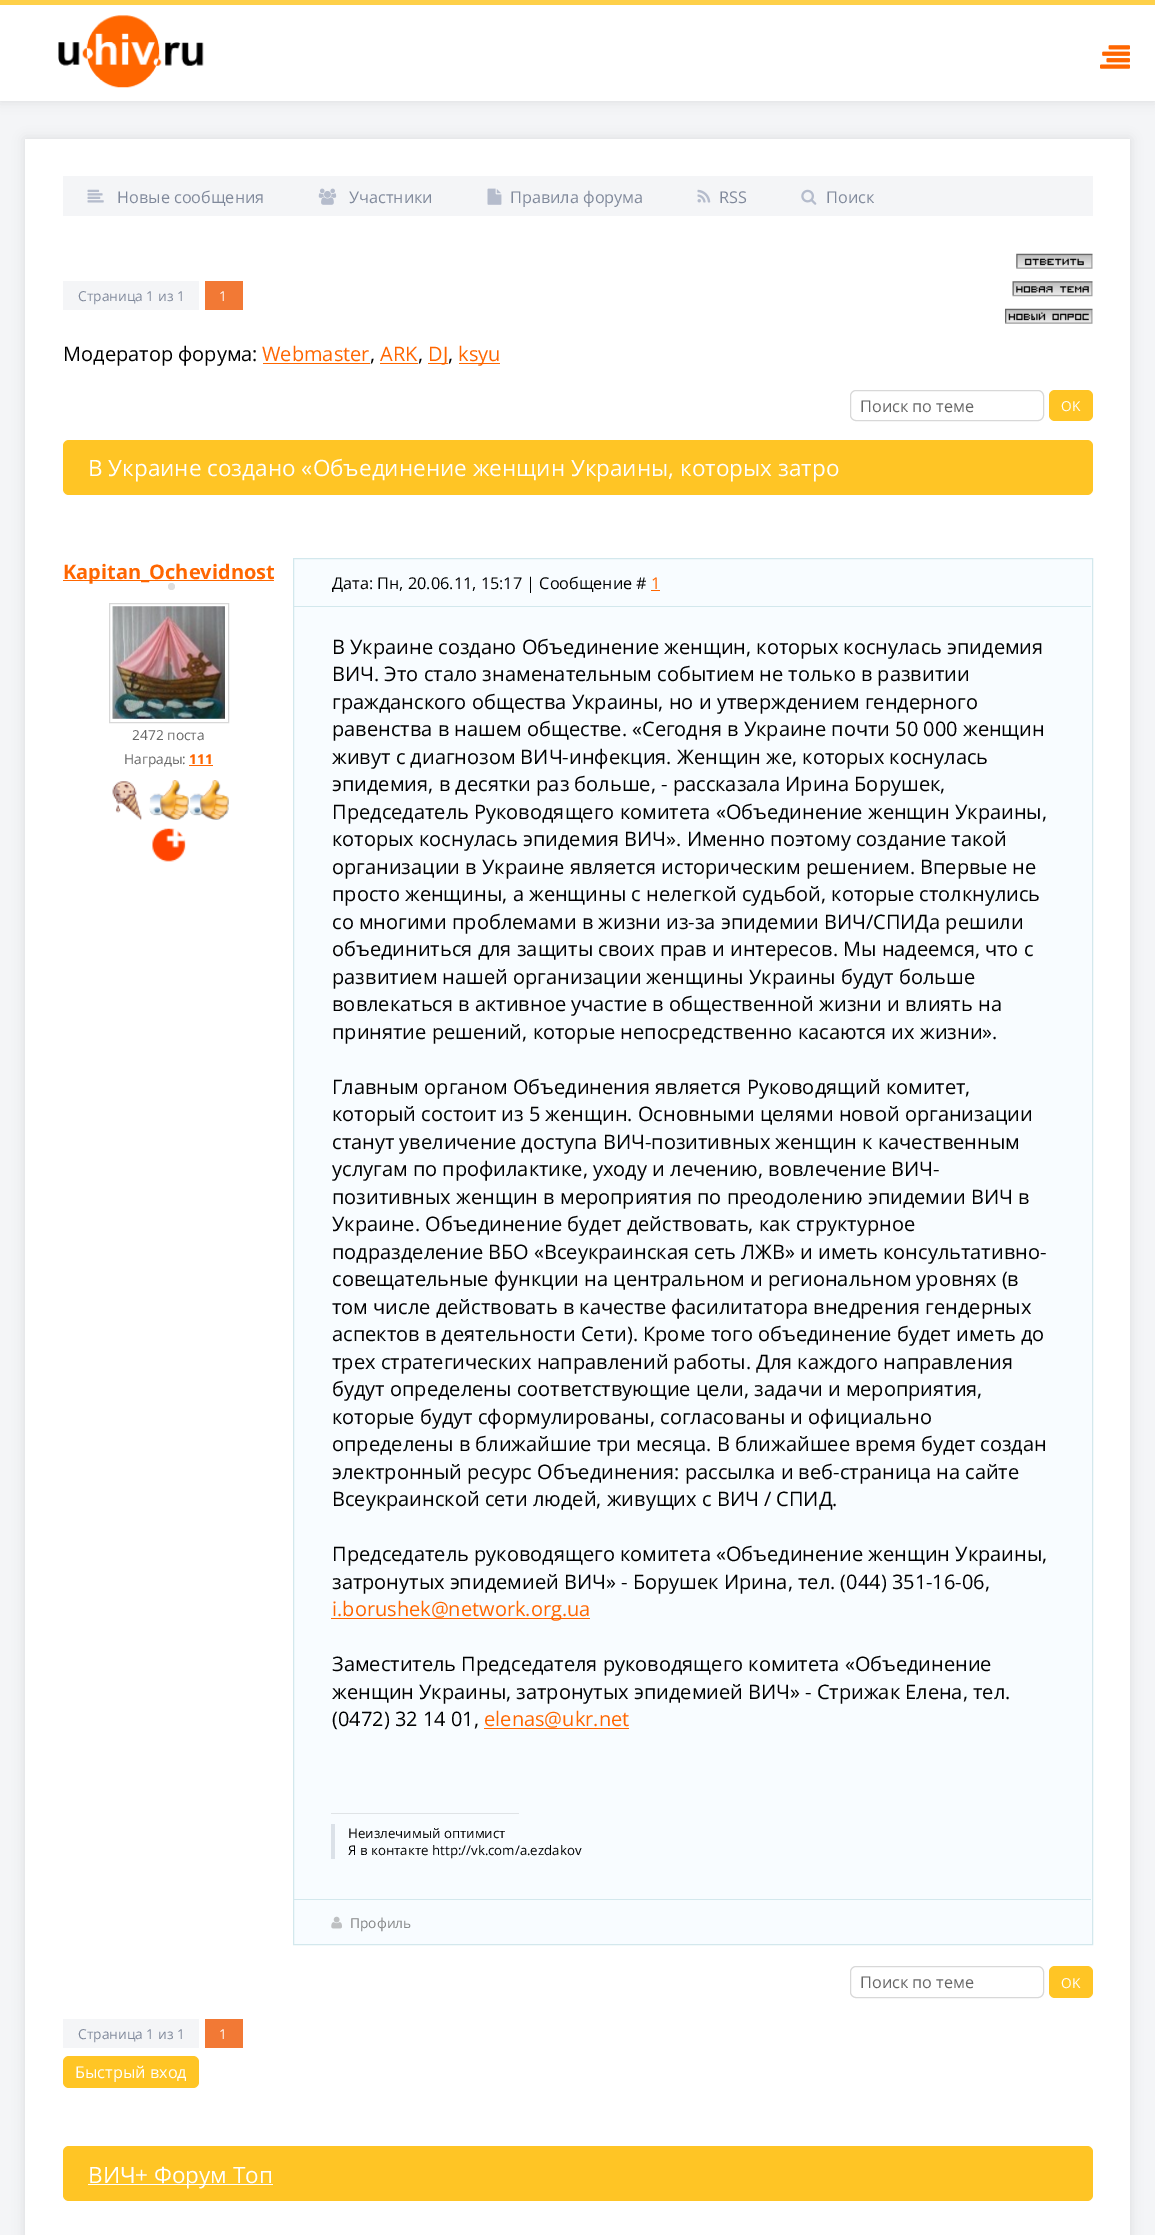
%!PS-Adobe-3.0
%%BoundingBox: 0 0 1155 2235
%%LanguageLevel: 3
%%Pages: 1
%%EndComments
%%BeginProlog
/setalpha { dup .setfillconstantalpha .setstrokeconstantalpha } def
/rrect { 5 dict begin { /r /h /w /y /x } { exch def } forall
  x r add y moveto x w add y 2 copy h add r arct x w add y h add x 1 index r arct
  x y h add x y r arct x y 2 copy exch w add exch r arct closepath end } def
/softshadow { 12 dict begin { /a /b /q /h /w /y /x } { exch def } forall gsave /was 0 def
  9 -2 -9 { dup b mul 4 div /e exch def 1 sub .425 mul 2.718 exch exp 1 add a .99 .min exch div /now exch def
    1 1 now sub 1 was sub div sub setalpha /was now def
    w h .min e 2 mul add 0 gt { x e sub y e sub w e 2 mul add h e 2 mul add
      q e add b .6 mul add w h .min 2 div e add .min 0 .max rrect fill } if } for grestore end } def
/drawimage { 5 dict begin { /h /w /y /x /name } { exch def } forall
  gsave x y translate w h scale
  w h 8 [w 0 0 h 0 0] name (r) file false 3 colorimage grestore end } def
%%EndProlog
%%BeginSetup
<< /PageSize [1155 2235] /PageUsesTransparency true >> setpagedevice
%%EndSetup
%%Page: 1 1
0 .pushpdf14devicefilter
0 2235 translate 1 -1 scale
4 setmiterlimit
0.957 0.961 0.969 setrgbcolor
0 0 1155 2235 rectfill
0 setgray
0 0 1155 101 0 6 0.1 softshadow
1 setgray
0 5 1155 96 rectfill
0.996 0.816 0.286 setrgbcolor
0 0 1155 5 rectfill
(images/1.raw) 58 15 146 73 drawimage
(images/2.raw) 1100 45 30 24 drawimage
0 setgray
25 139 1105 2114 0 6 0.1 softshadow
1 setgray
25 139 1105 2096 rectfill
0.957 0.961 0.969 setrgbcolor
63 176 1030 40 rectfill
(images/3.raw) 87 189 17 14 drawimage
(images/4.raw) 318 188 19 17 drawimage
(images/5.raw) 487 188 15 17 drawimage
(images/6.raw) 697 189 14 14 drawimage
(images/7.raw) 801 189 16 16 drawimage
63 281 136 29 rectfill
0.949 0.475 0.208 setrgbcolor
205 281 38 29 rectfill
(images/8.raw) 1016 253 77 16 drawimage
(images/9.raw) 1012 281 81 16 drawimage
(images/10.raw) 1005 308 88 16 drawimage
1 0.4 0 setrgbcolor
263 363 107 1 rectfill
380 363 38 1 rectfill
428 363 20 1 rectfill
459 363 41 1 rectfill
0.847 setgray
850.5 390.5 193 30 5.5 rrect stroke
1 0.773 0.145 setrgbcolor
1049 390 44 31 6 rrect fill
63 440 1030 55 6 rrect fill
1 0.4 0 setrgbcolor
63 580 211 1 rectfill
0.847 setgray
109.5 603.5 119 119 rectstroke
(images/11.raw) 112 606 113 113 drawimage
1 0.4 0 setrgbcolor
189 765 24 1 rectfill
(images/12.raw) 112 781 30 39 drawimage
(images/13.raw) 149 780 40 40 drawimage
(images/14.raw) 188 780 41 40 drawimage
(images/15.raw) 152 828 34 34 drawimage
0.973 0.988 1 setrgbcolor
newpath 293.5 558.5 moveto 1092.5 558.5 lineto 1092.5 1944.5 lineto 293.5 1944.5 lineto closepath gsave fill grestore
0.827 0.91 0.929 setrgbcolor
stroke
294 606 797 1 rectfill
1 0.4 0 setrgbcolor
651 590 9 1 rectfill
331 1618 259 1 rectfill
484 1728 145 1 rectfill
0.875 0.89 0.902 setrgbcolor
331 1813 188 1 rectfill
0.859 0.882 0.91 setrgbcolor
331 1824 4 35 rectfill
0.827 0.91 0.929 setrgbcolor
294 1899 797 1 rectfill
(images/16.raw) 331 1916 11 13 drawimage
0.847 setgray
850.5 1966.5 193 31 5.5 rrect stroke
1 0.773 0.145 setrgbcolor
1049 1966 44 32 6 rrect fill
0.957 0.961 0.969 setrgbcolor
63 2019 136 29 rectfill
0.949 0.475 0.208 setrgbcolor
205 2019 38 29 rectfill
1 0.773 0.145 setrgbcolor
63 2056 136 32 6 rrect fill
63 2146 1030 55 6 rrect fill
1 setgray
88 2184 185 1 rectfill
/OpenSans-Regular [16.25 0 0 -16.25 0 0] selectfont
0.502 0.537 0.608 setrgbcolor
117 203 moveto (Новые сообщения) show
349 203 moveto (Участники) show
510 203 moveto (Правила форума) show
719 203 moveto (RSS) show
826 203 moveto (Поиск) show
/OpenSans-Regular [13.75 0 0 -13.75 0 0] selectfont
78 301 moveto (Страница 1 из 1) show
1 setgray
219 301 moveto (1) show
/OpenSans-Regular [20 0 0 -20 0 0] selectfont
0 setgray
63 361 moveto (Модератор форума:) show
1 0.4 0 setrgbcolor
262 361 moveto (Webmaster) show
0 setgray
370 361 moveto (,) show
1 0.4 0 setrgbcolor
380 361 moveto (ARK) show
0 setgray
418 361 moveto (,) show
1 0.4 0 setrgbcolor
428 361 moveto (DJ) show
0 setgray
448 361 moveto (,) show
1 0.4 0 setrgbcolor
458 361 moveto (ksyu) show
/OpenSans-Regular [16.25 0 0 -16.25 0 0] selectfont
0.4 setgray
860 412 moveto (Поиск по теме) show
/OpenSans-Regular [13.75 0 0 -13.75 0 0] selectfont
1 setgray
1061 411 moveto (OK) show
/OpenSans-Regular [22.5 0 0 -22.5 0 0] selectfont
88 476 moveto (В Украине создано «Объединение женщин Украины, которых затро) show
/OpenSans-Bold [20 0 0 -20 0 0] selectfont
1 0.4 0 setrgbcolor
63 579 moveto (Kapitan_Ochevidnost) show
0.871 setgray
newpath 171.5 586.5 3.5 0 360 arc closepath fill
/OpenSans-Regular [13.75 0 0 -13.75 0 0] selectfont
0.4 setgray
132 740 moveto (2472 поста) show
124 764 moveto (Награды:) show
/OpenSans-Bold [13.75 0 0 -13.75 0 0] selectfont
1 0.4 0 setrgbcolor
189 764 moveto (111) show
/OpenSans-Regular [16.25 0 0 -16.25 0 0] selectfont
0 setgray
332 589 moveto (Дата: Пн, 20.06.11, 15:17 | Сообщение #) show
1 0.4 0 setrgbcolor
651 589 moveto (1) show
/OpenSans-Regular [20 0 0 -20 0 0] selectfont
0 setgray
332 654 moveto (В Украине создано Объединение женщин, которых коснулась эпидемия) show
332 681 moveto (ВИЧ. Это стало знаменательным событием не только в развитии) show
332 709 moveto (гражданского общества Украины, но и утверждением гендерного) show
332 736 moveto (равенства в нашем обществе. «Сегодня в Украине почти 50 000 женщин) show
332 764 moveto (живут с диагнозом ВИЧ-инфекция. Женщин же, которых коснулась) show
332 791 moveto (эпидемия, в десятки раз больше, - рассказала Ирина Борушек,) show
332 819 moveto (Председатель Руководящего комитета «Объединение женщин Украины,) show
332 846 moveto (которых коснулась эпидемия ВИЧ». Именно поэтому создание такой) show
332 874 moveto (организации в Украине является историческим решением. Впервые не) show
332 901 moveto (просто женщины, а женщины с нелегкой судьбой, которые столкнулись) show
332 929 moveto (со многими проблемами в жизни из-за эпидемии ВИЧ/СПИДа решили) show
332 956 moveto (объединиться для защиты своих прав и интересов. Мы надеемся, что с) show
332 984 moveto (развитием нашей организации женщины Украины будут больше) show
332 1011 moveto (вовлекаться в активное участие в общественной жизни и влиять на) show
332 1039 moveto (принятие решений, которые непосредственно касаются их жизни».) show
332 1094 moveto (Главным органом Объединения является Руководящий комитет,) show
332 1121 moveto (который состоит из 5 женщин. Основными целями новой организации) show
332 1149 moveto (станут увеличение доступа ВИЧ-позитивных женщин к качественным) show
332 1176 moveto (услугам по профилактике, уходу и лечению, вовлечение ВИЧ-) show
332 1204 moveto (позитивных женщин в мероприятия по преодолению эпидемии ВИЧ в) show
332 1231 moveto (Украине. Объединение будет действовать, как структурное) show
332 1259 moveto (подразделение ВБО «Всеукраинская сеть ЛЖВ» и иметь консультативно-) show
332 1286 moveto (совещательные функции на центральном и региональном уровнях \(в) show
332 1314 moveto (том числе действовать в качестве фасилитатора внедрения гендерных) show
332 1341 moveto (аспектов в деятельности Сети\). Кроме того объединение будет иметь до) show
332 1369 moveto (трех стратегических направлений работы. Для каждого направления) show
332 1396 moveto (будут определены соответствующие цели, задачи и мероприятия,) show
332 1424 moveto (которые будут сформулированы, согласованы и официально) show
332 1451 moveto (определены в ближайшие три месяца. В ближайшее время будет создан) show
332 1479 moveto (электронный ресурс Объединения: рассылка и веб-страница на сайте) show
332 1506 moveto (Всеукраинской сети людей, живущих с ВИЧ / СПИД.) show
332 1561 moveto (Председатель руководящего комитета «Объединение женщин Украины,) show
332 1589 moveto (затронутых эпидемией ВИЧ» - Борушек Ирина, тел. \(044\) 351-16-06,) show
1 0.4 0 setrgbcolor
332 1616 moveto (i.borushek@network.org.ua) show
0 setgray
332 1671 moveto (Заместитель Председателя руководящего комитета «Объединение) show
332 1699 moveto (женщин Украины, затронутых эпидемией ВИЧ» - Стрижак Елена, тел.) show
332 1726 moveto (\(0472\) 32 14 01,) show
1 0.4 0 setrgbcolor
484 1726 moveto (elenas@ukr.net) show
/OpenSans-Regular [13.3 0 0 -13.3 0 0] selectfont
0 setgray
348 1838 moveto (Неизлечимый оптимист) show
348 1855 moveto (Я в контакте http://vk.com/a.ezdakov) show
/OpenSans-Regular [13.75 0 0 -13.75 0 0] selectfont
0.514 0.518 0.522 setrgbcolor
350 1928 moveto (Профиль) show
/OpenSans-Regular [16.25 0 0 -16.25 0 0] selectfont
0.4 setgray
860 1988 moveto (Поиск по теме) show
/OpenSans-Regular [13.75 0 0 -13.75 0 0] selectfont
1 setgray
1061 1988 moveto (OK) show
0.502 0.537 0.608 setrgbcolor
78 2039 moveto (Страница 1 из 1) show
1 setgray
219 2039 moveto (1) show
/OpenSans-Regular [16.25 0 0 -16.25 0 0] selectfont
75 2078 moveto (Быстрый вход) show
/OpenSans-Regular [22.5 0 0 -22.5 0 0] selectfont
88 2183 moveto (ВИЧ+ Форум Топ) show
.poppdf14devicefilter showpage
%%EOF
